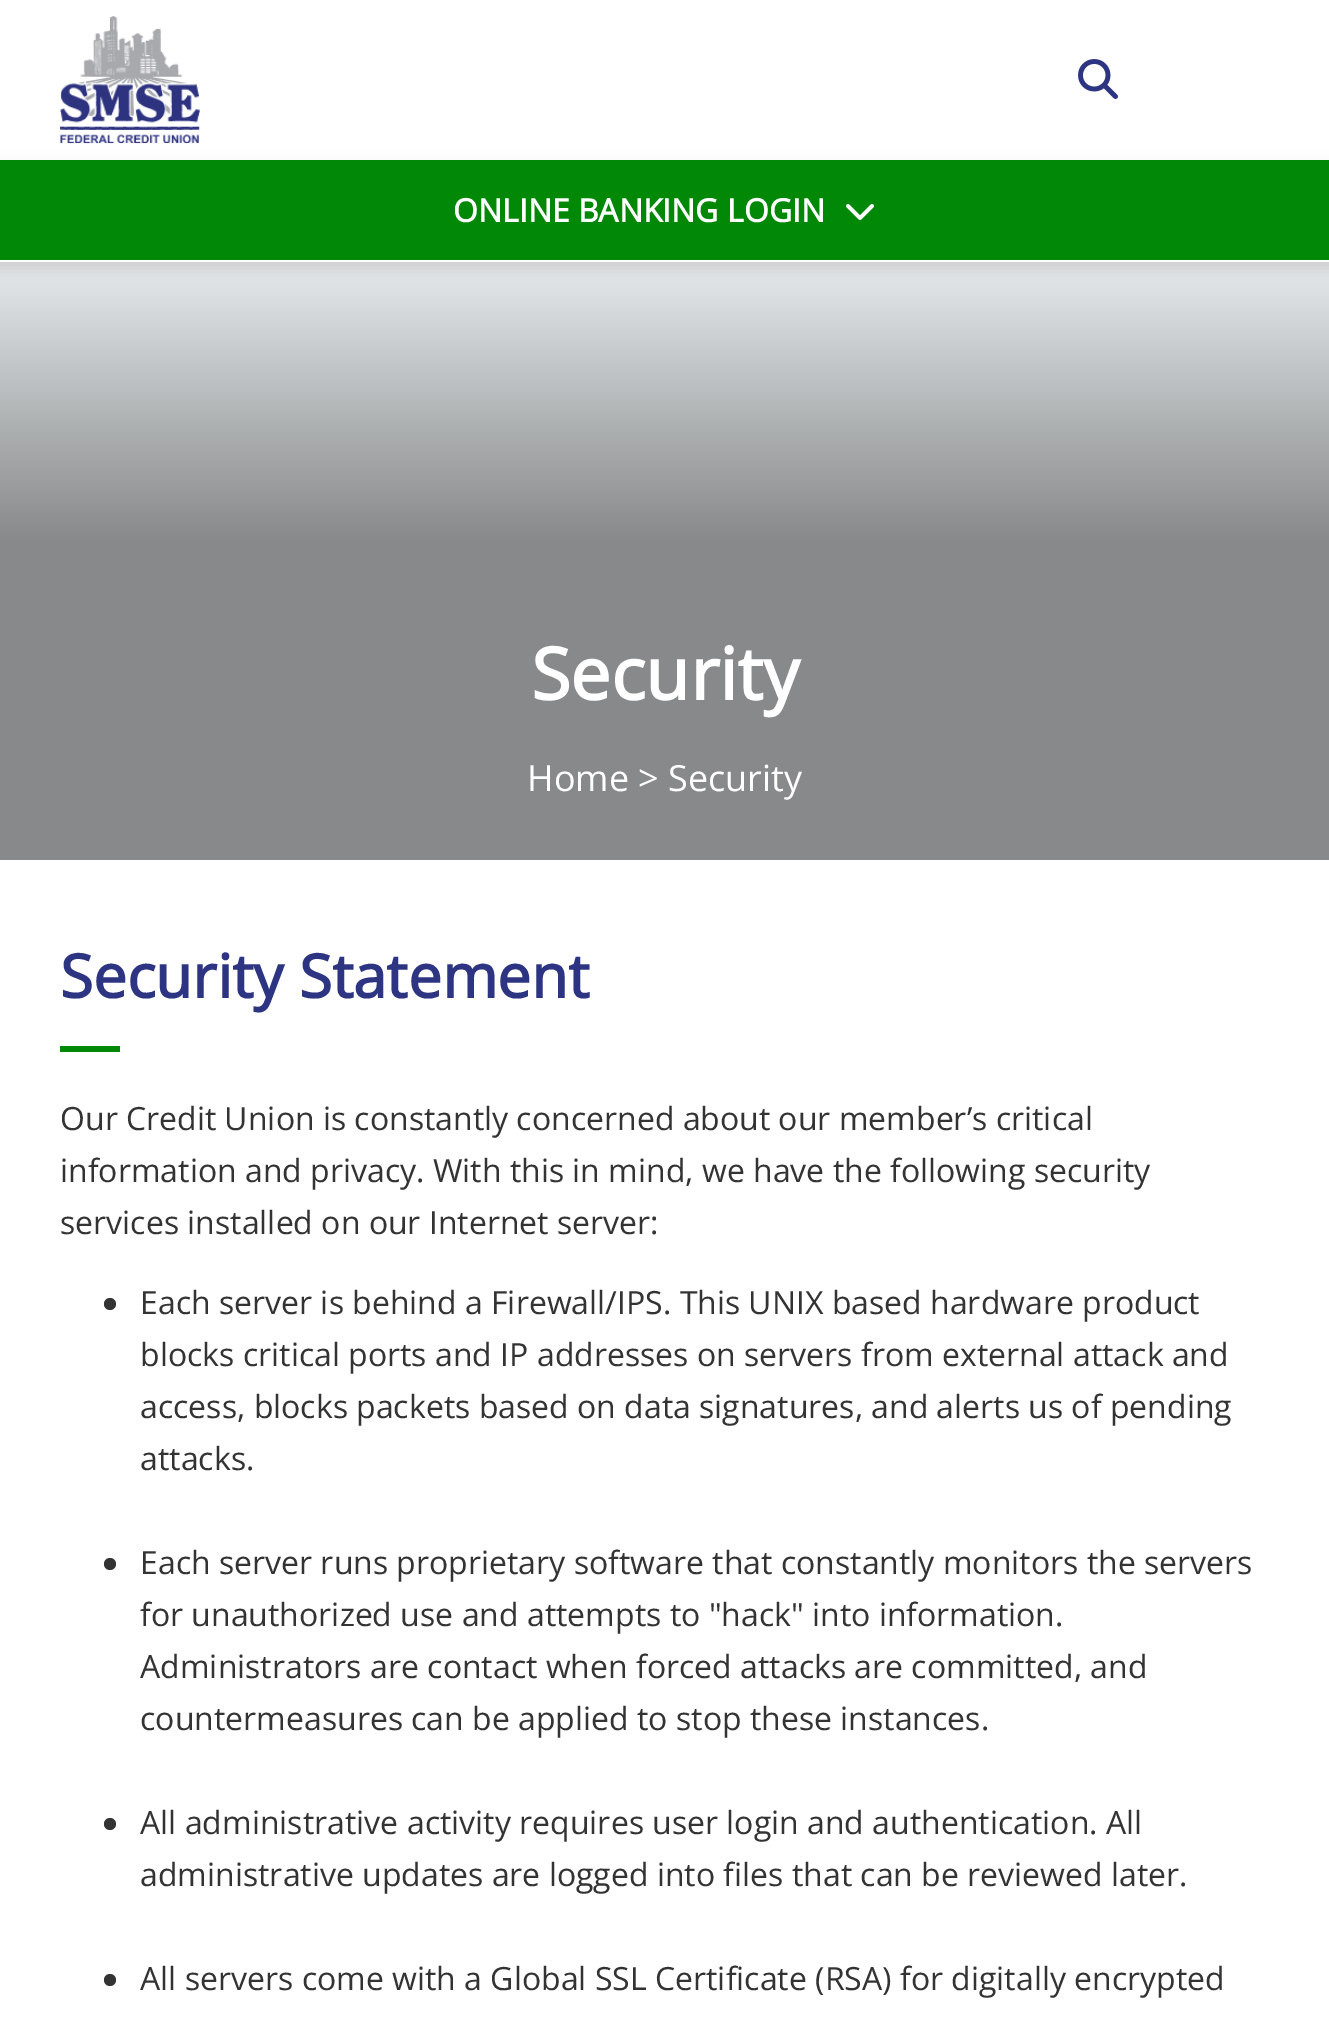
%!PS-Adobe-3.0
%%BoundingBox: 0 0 1329 2027
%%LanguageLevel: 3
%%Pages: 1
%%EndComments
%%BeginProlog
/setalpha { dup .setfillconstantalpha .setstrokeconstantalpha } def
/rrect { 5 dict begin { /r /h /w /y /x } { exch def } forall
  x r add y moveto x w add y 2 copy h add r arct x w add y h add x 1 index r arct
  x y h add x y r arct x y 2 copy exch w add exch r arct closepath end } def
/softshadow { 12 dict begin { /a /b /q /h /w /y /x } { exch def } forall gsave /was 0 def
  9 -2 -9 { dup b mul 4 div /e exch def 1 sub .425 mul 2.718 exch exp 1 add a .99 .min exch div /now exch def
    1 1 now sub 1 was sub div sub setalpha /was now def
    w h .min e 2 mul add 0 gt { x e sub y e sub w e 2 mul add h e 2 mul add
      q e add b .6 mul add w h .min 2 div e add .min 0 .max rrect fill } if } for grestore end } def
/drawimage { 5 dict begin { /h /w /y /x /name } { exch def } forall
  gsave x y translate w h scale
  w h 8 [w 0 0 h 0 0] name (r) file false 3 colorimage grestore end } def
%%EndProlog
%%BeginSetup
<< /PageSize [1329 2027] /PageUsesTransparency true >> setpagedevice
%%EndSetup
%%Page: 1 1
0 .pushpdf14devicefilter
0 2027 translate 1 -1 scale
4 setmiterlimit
1 setgray
0 0 1329 2027 rectfill
(images/1.raw) 60 16 140 128 drawimage
(images/2.raw) 1078 59 40 40 drawimage
gsave newpath 0 262 moveto 1329 262 lineto 1329 860 lineto 0 860 lineto closepath clip newpath
<< /ShadingType 2 /ColorSpace /DeviceRGB /Coords [665 260 665 860] /Extend [true true] /Function << /FunctionType 3 /Domain [0 1] /Functions [<< /FunctionType 2 /Domain [0 1] /C0 [0.882 0.894 0.902] /C1 [0.882 0.894 0.902] /N 1 >> << /FunctionType 2 /Domain [0 1] /C0 [0.882 0.894 0.902] /C1 [0.529 0.537 0.541] /N 1 >> << /FunctionType 2 /Domain [0 1] /C0 [0.529 0.537 0.541] /C1 [0.529 0.537 0.541] /N 1 >>] /Bounds [0.03 0.47] /Encode [0 1 0 1 0 1] >> >> shfill grestore
0 setgray
-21 166 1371 102 0 7 0.1 softshadow
0.008 0.533 0.027 setrgbcolor
0 160 1329 100 rectfill
1 setgray
0 260 1329 2 rectfill
(images/3.raw) 846 204 28 16 drawimage
0.008 0.533 0.027 setrgbcolor
60 1046 60 6 rectfill
0.2 setgray
newpath 110 1304 6 0 360 arc closepath fill
newpath 110 1564 6 0 360 arc closepath fill
newpath 110 1824 6 0 360 arc closepath fill
newpath 110 1980 6 0 360 arc closepath fill
/OpenSans-Bold [32 0 0 -32 0 0] selectfont
1 setgray
453 222 moveto (ONLINE BANKING LOGIN) show
/OpenSans-Bold [72 0 0 -72 0 0] selectfont
531 700 moveto (Security) show
/OpenSans-Regular [36 0 0 -36 0 0] selectfont
527 791 moveto (Home > Security) show
/OpenSans-Bold [60 0 0 -60 0 0] selectfont
0.176 0.204 0.51 setrgbcolor
60 998 moveto (Security Statement) show
/OpenSans-Regular [32 0 0 -32 0 0] selectfont
0.2 setgray
60 1130 moveto (Our Credit Union is constantly concerned about our member’s critical) show
60 1182 moveto (information and privacy. With this in mind, we have the following security) show
60 1234 moveto (services installed on our Internet server:) show
140 1314 moveto (Each server is behind a Firewall/IPS. This UNIX based hardware product) show
140 1366 moveto (blocks critical ports and IP addresses on servers from external attack and) show
140 1418 moveto (access, blocks packets based on data signatures, and alerts us of pending) show
140 1470 moveto (attacks.) show
140 1574 moveto (Each server runs proprietary software that constantly monitors the servers) show
140 1626 moveto (for unauthorized use and attempts to "hack" into information.) show
140 1678 moveto (Administrators are contact when forced attacks are committed, and) show
140 1730 moveto (countermeasures can be applied to stop these instances.) show
140 1834 moveto (All administrative activity requires user login and authentication. All) show
140 1886 moveto (administrative updates are logged into files that can be reviewed later.) show
140 1990 moveto (All servers come with a Global SSL Certificate \(RSA\) for digitally encrypted) show
.poppdf14devicefilter showpage
%%EOF
